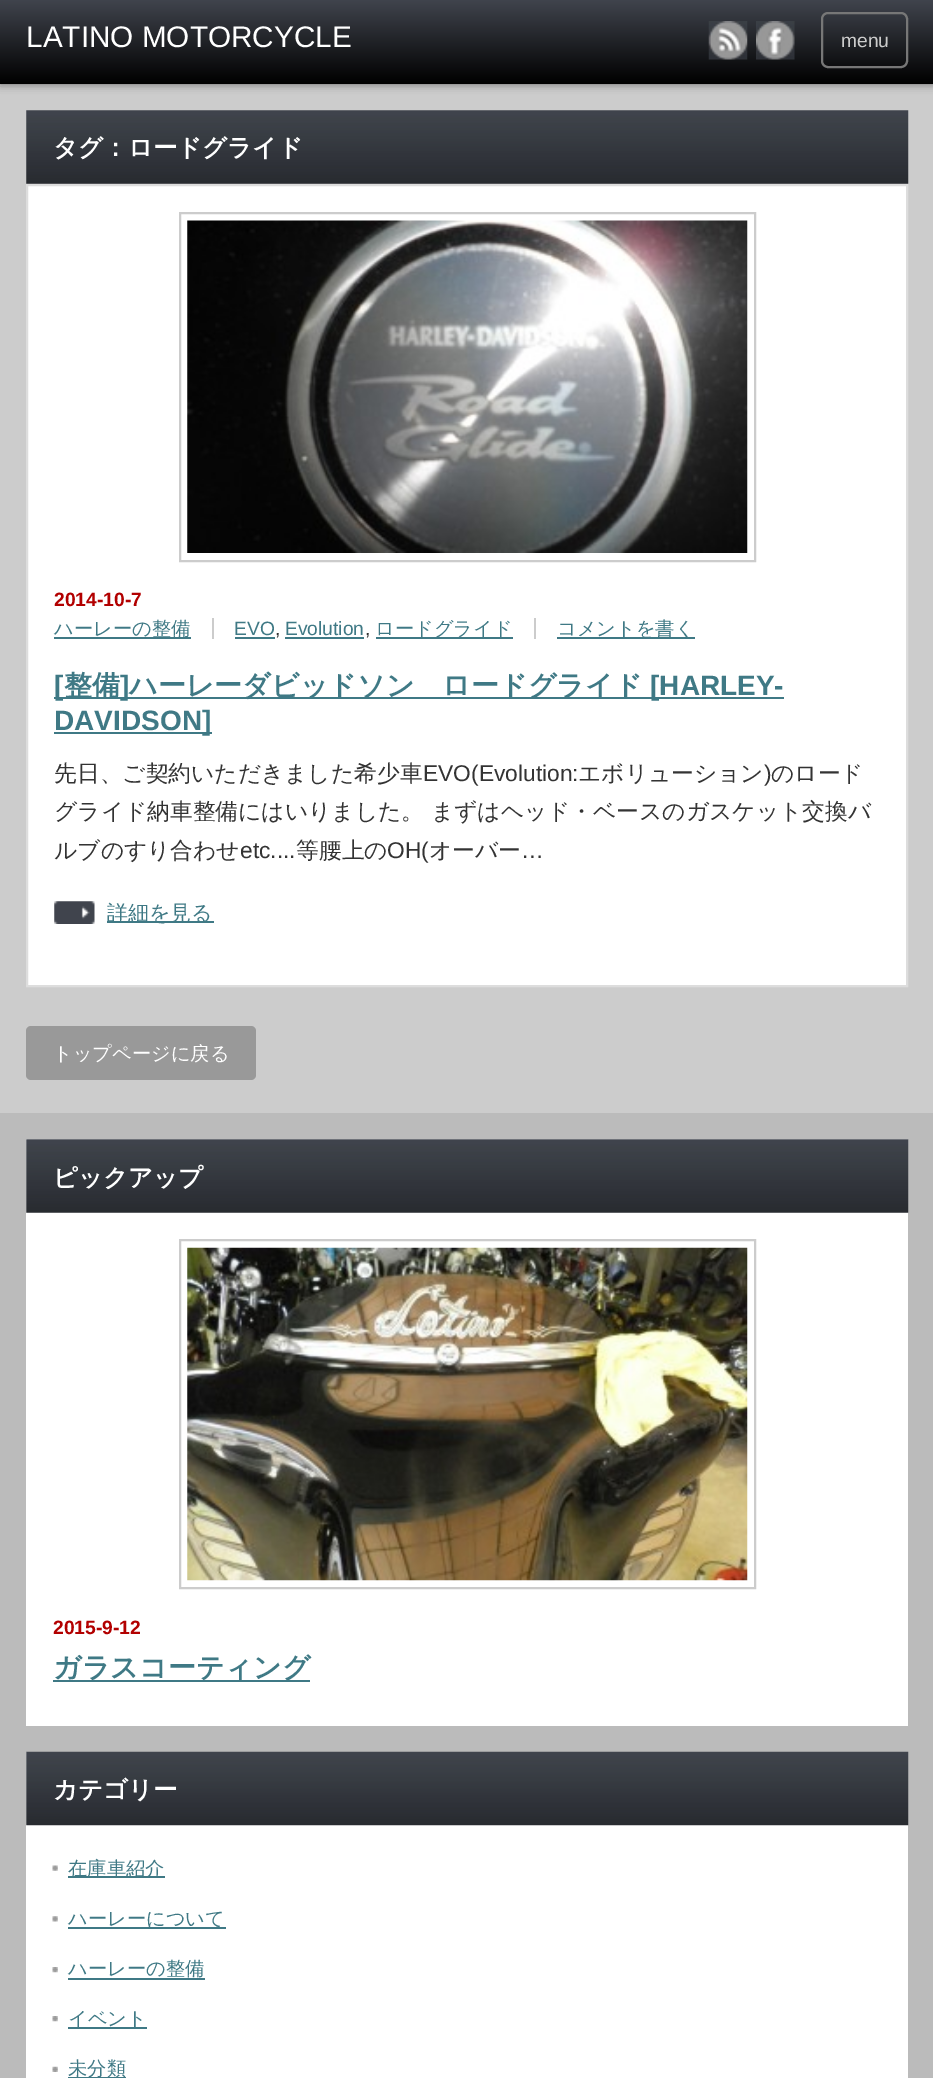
%!PS-Adobe-3.0
%%BoundingBox: 0 0 933 2078
%%LanguageLevel: 3
%%Pages: 1
%%EndComments
%%BeginProlog
/setalpha { dup .setfillconstantalpha .setstrokeconstantalpha } def
/rrect { 5 dict begin { /r /h /w /y /x } { exch def } forall
  x r add y moveto x w add y 2 copy h add r arct x w add y h add x 1 index r arct
  x y h add x y r arct x y 2 copy exch w add exch r arct closepath end } def
/softshadow { 12 dict begin { /a /b /q /h /w /y /x } { exch def } forall gsave /was 0 def
  9 -2 -9 { dup b mul 4 div /e exch def 1 sub .425 mul 2.718 exch exp 1 add a .99 .min exch div /now exch def
    1 1 now sub 1 was sub div sub setalpha /was now def
    w h .min e 2 mul add 0 gt { x e sub y e sub w e 2 mul add h e 2 mul add
      q e add b .6 mul add w h .min 2 div e add .min 0 .max rrect fill } if } for grestore end } def
/drawimage { 5 dict begin { /h /w /y /x /name } { exch def } forall
  gsave x y translate w h scale
  w h 8 [w 0 0 h 0 0] name (r) file false 3 colorimage grestore end } def
%%EndProlog
%%BeginSetup
<< /PageSize [933 2078] /PageUsesTransparency true >> setpagedevice
%%EndSetup
%%Page: 1 1
0 .pushpdf14devicefilter
0 2078 translate 1 -1 scale
4 setmiterlimit
0.8 setgray
0 0 933 2078 rectfill
0 setgray
0 0 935 84 0 4.5 0.5 softshadow
gsave newpath 0 0 moveto 933 0 lineto 933 84 lineto 0 84 lineto closepath clip newpath
<< /ShadingType 2 /ColorSpace /DeviceRGB /Coords [467 0 467 84] /Extend [true true] /Function << /FunctionType 2 /Domain [0 1] /C0 [0.251 0.267 0.302] /C1 [0 0 0] /N 1 >> >> shfill grestore
(images/1.raw) 708 21 40 39 drawimage
(images/2.raw) 756 21 39 39 drawimage
0.467 setgray
2 setlinewidth
822 13 85 54 6 rrect stroke
(images/3.raw) 26 110 883 74 drawimage
1 setgray
newpath 27 185 moveto 907 185 lineto 907 986 lineto 27 986 lineto closepath gsave fill grestore
0.867 setgray
stroke
0.8 setgray
180 213 575 348 rectstroke
(images/4.raw) 187 220 561 333 drawimage
212 618 2 21 rectfill
0.247 0.475 0.522 setrgbcolor
54 637 137 2 rectfill
0.8 setgray
534 618 2 21 rectfill
0.247 0.475 0.522 setrgbcolor
235 637 40 2 rectfill
285 637 79 2 rectfill
376 637 137 2 rectfill
557 637 138 2 rectfill
54 697 730 2 rectfill
54 732 158 2 rectfill
(images/5.raw) 54 901 41 23 drawimage
107 921 107 2 rectfill
0.6 setgray
26 1026 230 54 5 rrect fill
0.733 setgray
0 1113 933 965 rectfill
1 setgray
26 1139 882 587 rectfill
(images/6.raw) 26 1139 883 74 drawimage
0.8 setgray
180 1240 575 348 rectstroke
(images/7.raw) 187 1247 561 334 drawimage
0.247 0.475 0.522 setrgbcolor
53 1680 257 2 rectfill
1 setgray
26 1752 882 326 rectfill
(images/8.raw) 26 1751 883 75 drawimage
(images/9.raw) 52 1865 6 6 drawimage
0.247 0.475 0.522 setrgbcolor
68 1876 97 2 rectfill
(images/10.raw) 52 1916 6 6 drawimage
68 1927 158 2 rectfill
(images/11.raw) 52 1967 6 6 drawimage
68 1978 137 2 rectfill
(images/11.raw) 52 2016 6 6 drawimage
68 2027 79 2 rectfill
(images/12.raw) 52 2066 6 6 drawimage
68 2077 58 1 rectfill
/LiberationSans-Regular [29.75 0 0 -29.75 0 0] selectfont
1 setgray
26 47 moveto (LATINO MOTORCYCLE) show
/LiberationSans-Regular [19.25 0 0 -19.25 0 0] selectfont
0.8 setgray
841 47 moveto (menu) show
/WenQuanYiZenHei-Bold [24.5 0 0 -24.5 0 0] selectfont
1 setgray
53 156 moveto (タグ：ロードグライド) show
/LiberationSans-Bold [19.25 0 0 -19.25 0 0] selectfont
0.698 0 0 setrgbcolor
54 606 moveto (2014-10-7) show
/WenQuanYiZenHei-Medium [19.25 0 0 -19.25 0 0] selectfont
0.247 0.475 0.522 setrgbcolor
54 635 moveto (ハーレーの整備) show
/LiberationSans-Regular [19.25 0 0 -19.25 0 0] selectfont
234 635 moveto (EVO) show
0.2 setgray
275 635 moveto (,) show
0.247 0.475 0.522 setrgbcolor
285 635 moveto (Evolution) show
0.2 setgray
365 635 moveto (,) show
/WenQuanYiZenHei-Medium [19.25 0 0 -19.25 0 0] selectfont
0.247 0.475 0.522 setrgbcolor
375 635 moveto (ロードグライド) show
557 635 moveto (コメントを書く) show
/LiberationSans-Bold [28 0 0 -28 0 0] selectfont
54 695 moveto ([) show
/WenQuanYiZenHei-Bold [28 0 0 -28 0 0] selectfont
64 695 moveto (整備) show
/LiberationSans-Bold [28 0 0 -28 0 0] selectfont
120 695 moveto (]) show
/WenQuanYiZenHei-Bold [28 0 0 -28 0 0] selectfont
129 695 moveto (ハーレーダビッドソン　ロードグライド) show
/LiberationSans-Bold [28 0 0 -28 0 0] selectfont
650 695 moveto ([HARLEY-) show
54 730 moveto (DAVIDSON]) show
/WenQuanYiZenHei-Medium [22.75 0 0 -22.75 0 0] selectfont
0.2 setgray
54 781 moveto (先日、ご契約いただきました希少車) show
/LiberationSans-Regular [22.75 0 0 -22.75 0 0] selectfont
423 781 moveto (EVO\(Evolution:) show
/WenQuanYiZenHei-Medium [22.75 0 0 -22.75 0 0] selectfont
578 781 moveto (エボリューション) show
/LiberationSans-Regular [22.75 0 0 -22.75 0 0] selectfont
764 781 moveto (\)) show
/WenQuanYiZenHei-Medium [22.75 0 0 -22.75 0 0] selectfont
771 781 moveto (のロード) show
54 819 moveto (グライド納車整備にはいりました。 まずはヘッド・ベースのガスケット交換バ) show
54 858 moveto (ルブのすり合わせ) show
/LiberationSans-Regular [22.75 0 0 -22.75 0 0] selectfont
240 858 moveto (etc....) show
/WenQuanYiZenHei-Medium [22.75 0 0 -22.75 0 0] selectfont
296 858 moveto (等腰上の) show
/LiberationSans-Regular [22.75 0 0 -22.75 0 0] selectfont
387 858 moveto (OH\() show
/WenQuanYiZenHei-Medium [22.75 0 0 -22.75 0 0] selectfont
429 858 moveto (オーバー) show
/LiberationSans-Regular [22.75 0 0 -22.75 0 0] selectfont
521 858 moveto (…) show
/WenQuanYiZenHei-Medium [21 0 0 -21 0 0] selectfont
0.247 0.475 0.522 setrgbcolor
107 920 moveto (詳細を見る) show
/WenQuanYiZenHei-Medium [19.25 0 0 -19.25 0 0] selectfont
1 setgray
53 1060 moveto (トップページに戻る) show
/WenQuanYiZenHei-Bold [24.5 0 0 -24.5 0 0] selectfont
53 1186 moveto (ピックアップ) show
/LiberationSans-Bold [19.25 0 0 -19.25 0 0] selectfont
0.698 0 0 setrgbcolor
53 1634 moveto (2015-9-12) show
/WenQuanYiZenHei-Bold [28 0 0 -28 0 0] selectfont
0.247 0.475 0.522 setrgbcolor
53 1677 moveto (ガラスコーティング) show
/WenQuanYiZenHei-Bold [24.5 0 0 -24.5 0 0] selectfont
1 setgray
53 1798 moveto (カテゴリー) show
/WenQuanYiZenHei-Medium [19.25 0 0 -19.25 0 0] selectfont
0.247 0.475 0.522 setrgbcolor
68 1875 moveto (在庫車紹介) show
68 1925 moveto (ハーレーについて) show
68 1975 moveto (ハーレーの整備) show
68 2025 moveto (イベント) show
68 2075 moveto (未分類) show
.poppdf14devicefilter showpage
%%EOF
